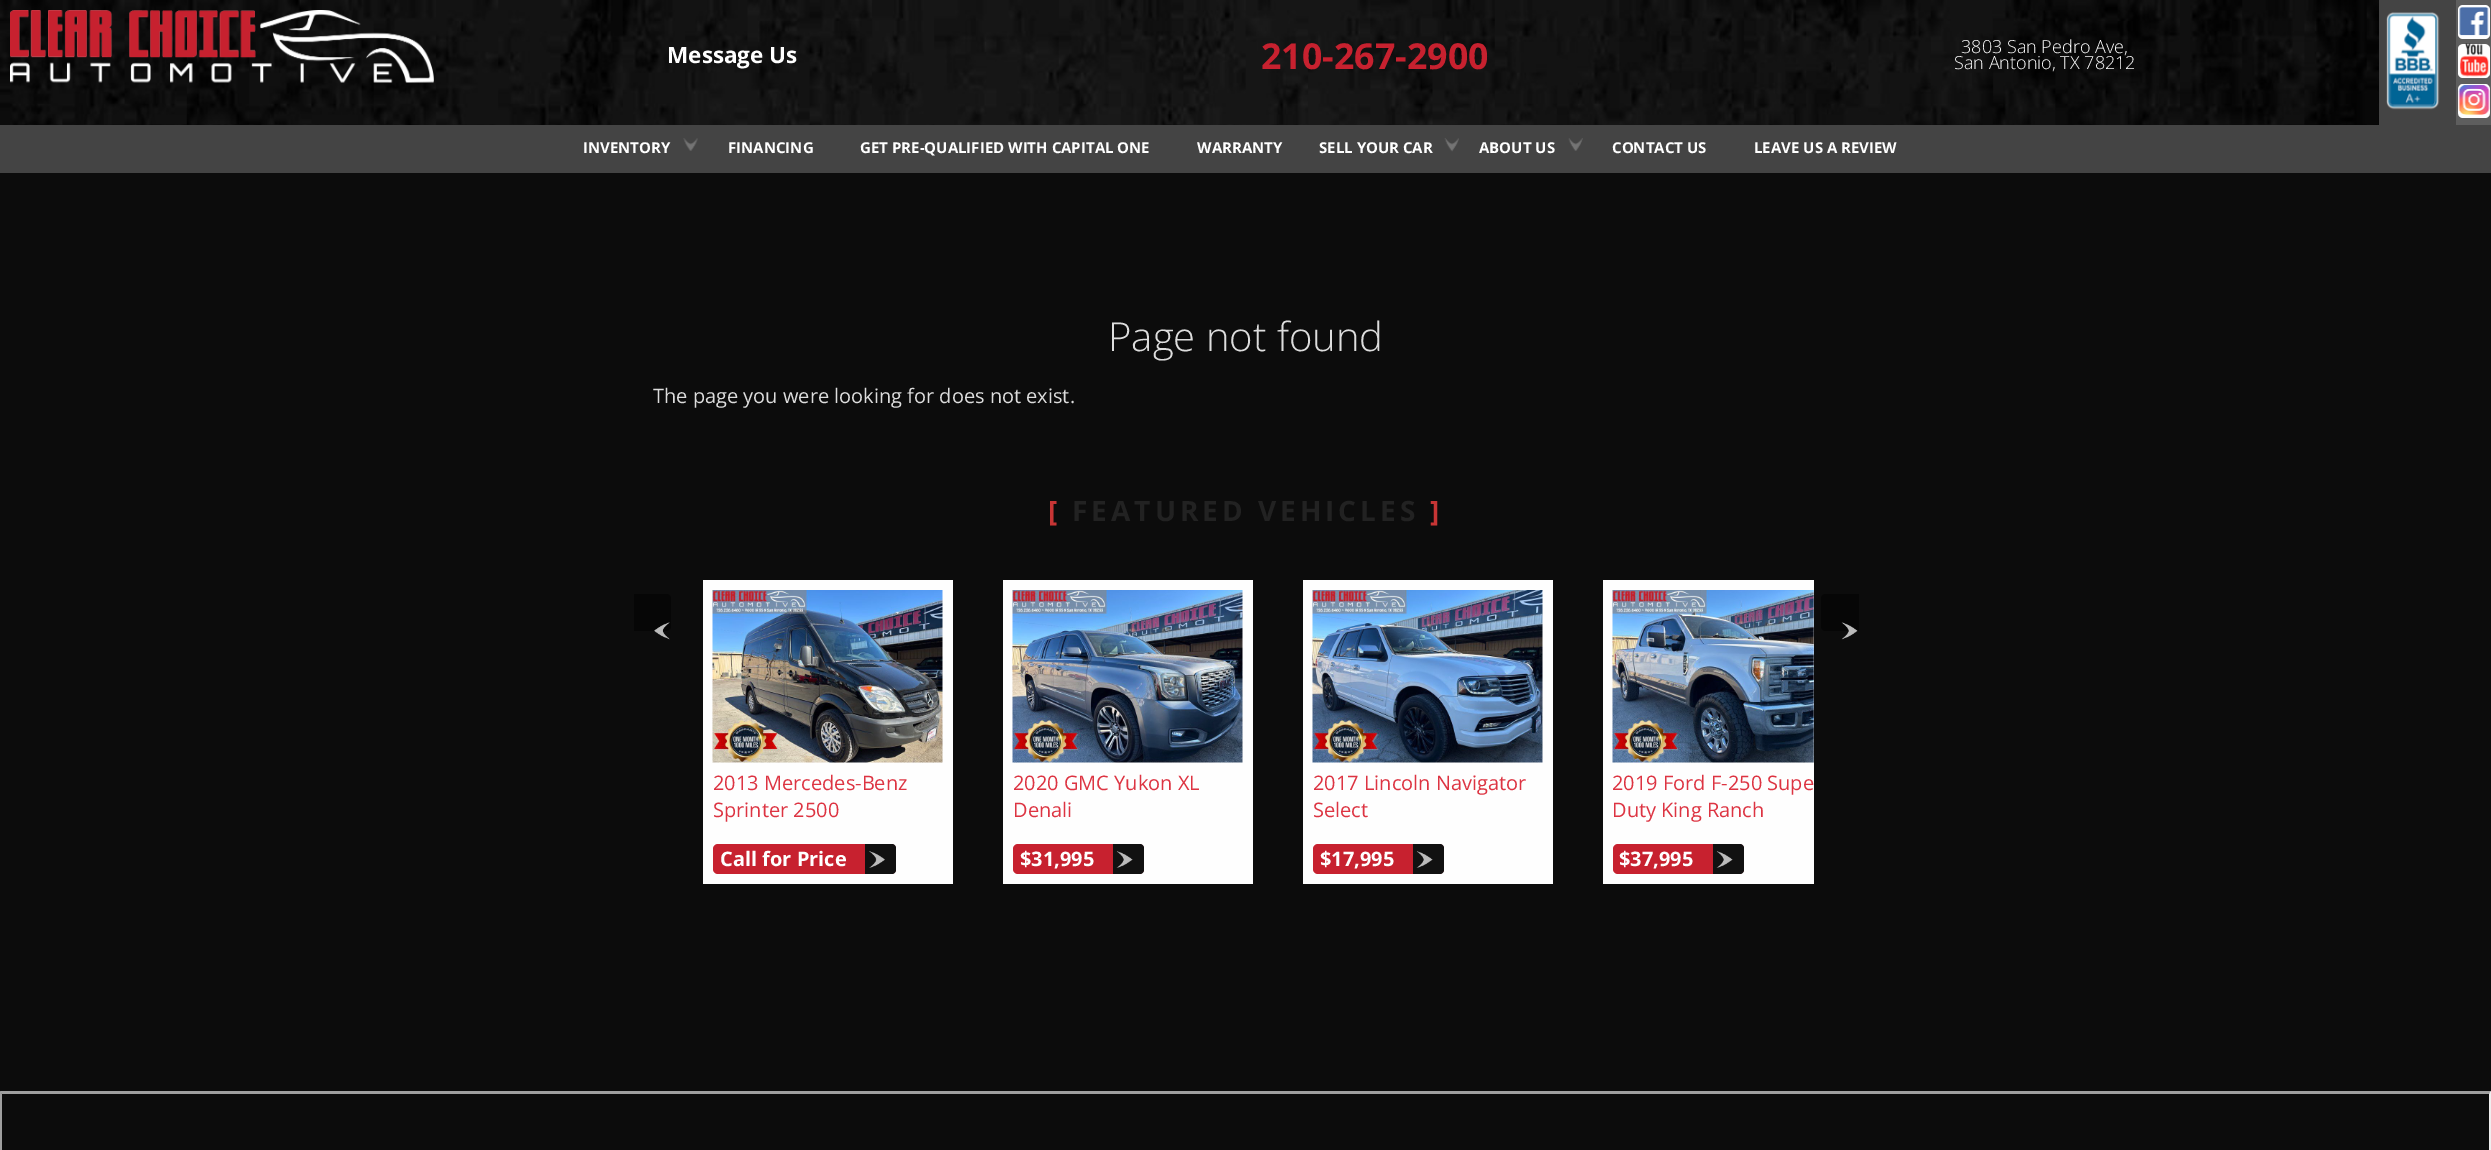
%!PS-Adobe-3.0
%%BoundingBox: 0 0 2491 1150
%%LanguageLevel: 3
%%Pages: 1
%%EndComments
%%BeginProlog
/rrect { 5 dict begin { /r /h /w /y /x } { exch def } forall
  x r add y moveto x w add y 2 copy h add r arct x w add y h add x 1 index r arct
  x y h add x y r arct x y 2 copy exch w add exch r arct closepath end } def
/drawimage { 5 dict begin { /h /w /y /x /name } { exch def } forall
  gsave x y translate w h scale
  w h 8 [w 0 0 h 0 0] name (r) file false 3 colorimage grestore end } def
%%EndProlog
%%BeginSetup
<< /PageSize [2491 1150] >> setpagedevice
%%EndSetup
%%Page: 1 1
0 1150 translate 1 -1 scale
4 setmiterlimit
0.047 setgray
0 0 2491 1150 rectfill
(images/1.raw) 0 0 2379 125 drawimage
(images/2.raw) 10 10 424 73 drawimage
0.267 setgray
2379 0 77 125 rectfill
(images/3.raw) 2386 12 54 98 drawimage
0.369 setgray
2456 0 35 125 rectfill
0.996 setgray
2458 5 32 34 5 rrect fill
(images/4.raw) 2459 7 30 29 drawimage
2458 44 32 34 5 rrect fill
(images/5.raw) 2460 43 29 34 drawimage
2458 84 32 34 5 rrect fill
(images/6.raw) 2458 85 32 30 drawimage
0.267 setgray
0 125 2491 48 rectfill
(images/7.raw) 683 138 15 13 drawimage
(images/8.raw) 1444 138 15 14 drawimage
(images/9.raw) 1568 138 15 13 drawimage
0.024 setgray
newpath 634 594 moveto 666 594 lineto 669 594 671 596 671 599 curveto 671 626 lineto 671 629 669 631 666 631 curveto 634 631 lineto closepath fill
(images/10.raw) 654 622 16 18 drawimage
newpath 1826 594 moveto 1859 594 lineto 1859 631 lineto 1826 631 lineto 1823 631 1821 629 1821 626 curveto 1821 599 lineto 1821 596 1823 594 1826 594 curveto closepath fill
(images/11.raw) 1841 622 17 18 drawimage
0.996 setgray
703 580 250 304 rectfill
(images/12.raw) 712 590 231 173 drawimage
0.78 0.129 0.184 setrgbcolor
713 844 183 30 5 rrect fill
0.067 setgray
newpath 865 844 moveto 892 844 lineto 894 844 896 846 896 848 curveto 896 870 lineto 896 872 894 874 892 874 curveto 865 874 lineto closepath fill
(images/13.raw) 869 851 16 17 drawimage
0.996 setgray
1003 580 250 304 rectfill
(images/14.raw) 1012 590 231 173 drawimage
0.78 0.129 0.184 setrgbcolor
1013 844 131 30 5 rrect fill
0.067 setgray
newpath 1113 844 moveto 1140 844 lineto 1142 844 1144 846 1144 848 curveto 1144 870 lineto 1144 872 1142 874 1140 874 curveto 1113 874 lineto closepath fill
(images/15.raw) 1116 851 17 17 drawimage
0.996 setgray
1303 580 250 304 rectfill
(images/16.raw) 1312 590 231 173 drawimage
0.78 0.129 0.184 setrgbcolor
1313 844 131 30 5 rrect fill
0.067 setgray
newpath 1413 844 moveto 1440 844 lineto 1442 844 1444 846 1444 848 curveto 1444 870 lineto 1444 872 1442 874 1440 874 curveto 1413 874 lineto closepath fill
(images/15.raw) 1416 851 17 17 drawimage
0.996 setgray
1603 580 211 304 rectfill
(images/17.raw) 1612 590 202 173 drawimage
0.78 0.129 0.184 setrgbcolor
1613 844 131 30 5 rrect fill
0.067 setgray
newpath 1713 844 moveto 1740 844 lineto 1742 844 1744 846 1744 848 curveto 1744 870 lineto 1744 872 1742 874 1740 874 curveto 1713 874 lineto closepath fill
(images/18.raw) 1716 851 17 17 drawimage
0.624 setgray
newpath 0 1091 moveto 2491 1091 lineto 2489 1094 lineto 2 1094 lineto closepath fill
0.933 setgray
newpath 2491 1091 moveto 2491 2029 lineto 2489 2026 lineto 2489 1094 lineto closepath fill
0.624 setgray
newpath 0 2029 moveto 0 1091 lineto 2 1094 lineto 2 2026 lineto closepath fill
/OpenSans-Bold [22.5 0 0 -22.5 0 0] selectfont
1 setgray
667 63 moveto (Message Us) show
/OpenSans-Bold [35.75 0 0 -35.75 0 0] selectfont
0.78 0.129 0.184 setrgbcolor
1261 69 moveto (210-267-2900) show
/OpenSans-Light [18 0 0 -18 0 0] selectfont
1 setgray
1961 53 moveto (3803 San Pedro Ave,) show
1954 69 moveto (San Antonio, TX 78212) show
/OpenSans-Bold [15 0 0 -15 0 0] selectfont
583 153 moveto (INVENTORY) show
728 153 moveto (FINANCING) show
860 153 moveto (GET PRE-QUALIFIED WITH CAPITAL ONE) show
1197 153 moveto (WARRANTY) show
1319 153 moveto (SELL YOUR CAR) show
1479 153 moveto (ABOUT US) show
1612 153 moveto (CONTACT US) show
1754 153 moveto (LEAVE US A REVIEW) show
/OpenSans-Light [40 0 0 -40 0 0] selectfont
0.867 setgray
1108 351 moveto (Page not found) show
/OpenSans-Regular [20 0 0 -20 0 0] selectfont
653 403 moveto (The page you were looking for does not exist.) show
/OpenSans-Bold [28 0 0 -28 0 0] selectfont
0.78 0.208 0.208 setrgbcolor
1048 521 moveto 4 0 ([) ashow
0.133 setgray
1072 521 moveto 4 0 (FEATURED VEHICLES) ashow
0.78 0.208 0.208 setrgbcolor
1430 521 moveto 4 0 (]) ashow
/OpenSans-Regular [20 0 0 -20 0 0] selectfont
0.867 0.204 0.259 setrgbcolor
713 790 moveto (2013 Mercedes-Benz) show
713 817 moveto (Sprinter 2500) show
/OpenSans-Bold [20 0 0 -20 0 0] selectfont
1 setgray
720 866 moveto (Call for Price) show
/OpenSans-Regular [20 0 0 -20 0 0] selectfont
0.867 0.204 0.259 setrgbcolor
1013 790 moveto (2020 GMC Yukon XL) show
1013 817 moveto (Denali) show
/OpenSans-Bold [20 0 0 -20 0 0] selectfont
1 setgray
1020 866 moveto ($31,995) show
/OpenSans-Regular [20 0 0 -20 0 0] selectfont
0.867 0.204 0.259 setrgbcolor
1313 790 moveto (2017 Lincoln Navigator) show
1313 817 moveto (Select) show
/OpenSans-Bold [20 0 0 -20 0 0] selectfont
1 setgray
1320 866 moveto ($17,995) show
/OpenSans-Regular [20 0 0 -20 0 0] selectfont
0.867 0.204 0.259 setrgbcolor
1612 790 moveto (2019 Ford F-250 Supe) show
1612 817 moveto (Duty King Ranch) show
/OpenSans-Bold [20 0 0 -20 0 0] selectfont
1 setgray
1619 866 moveto ($37,995) show
showpage
%%EOF
